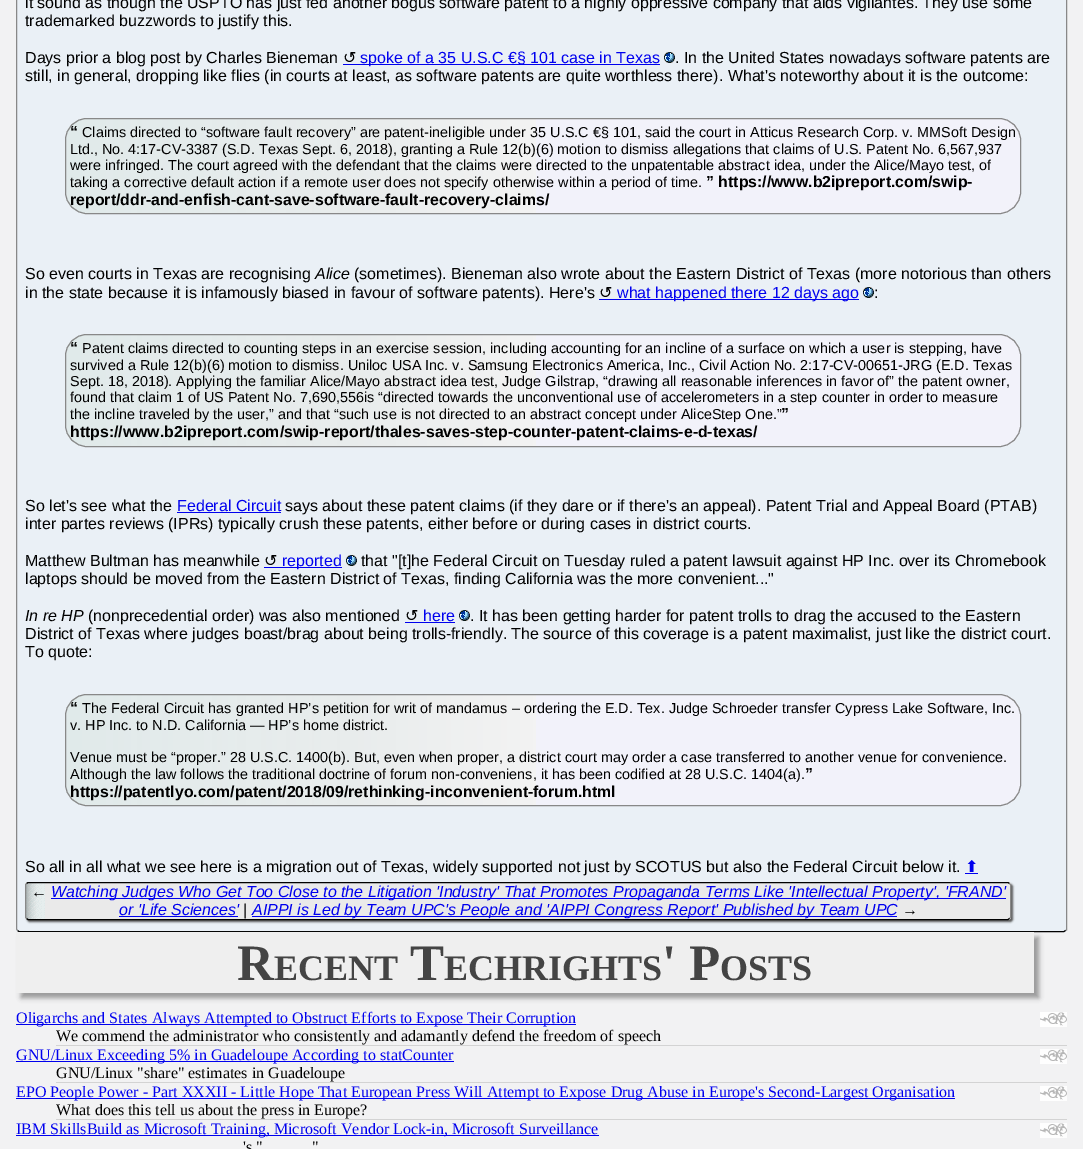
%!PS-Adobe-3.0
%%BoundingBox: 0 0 1083 1149
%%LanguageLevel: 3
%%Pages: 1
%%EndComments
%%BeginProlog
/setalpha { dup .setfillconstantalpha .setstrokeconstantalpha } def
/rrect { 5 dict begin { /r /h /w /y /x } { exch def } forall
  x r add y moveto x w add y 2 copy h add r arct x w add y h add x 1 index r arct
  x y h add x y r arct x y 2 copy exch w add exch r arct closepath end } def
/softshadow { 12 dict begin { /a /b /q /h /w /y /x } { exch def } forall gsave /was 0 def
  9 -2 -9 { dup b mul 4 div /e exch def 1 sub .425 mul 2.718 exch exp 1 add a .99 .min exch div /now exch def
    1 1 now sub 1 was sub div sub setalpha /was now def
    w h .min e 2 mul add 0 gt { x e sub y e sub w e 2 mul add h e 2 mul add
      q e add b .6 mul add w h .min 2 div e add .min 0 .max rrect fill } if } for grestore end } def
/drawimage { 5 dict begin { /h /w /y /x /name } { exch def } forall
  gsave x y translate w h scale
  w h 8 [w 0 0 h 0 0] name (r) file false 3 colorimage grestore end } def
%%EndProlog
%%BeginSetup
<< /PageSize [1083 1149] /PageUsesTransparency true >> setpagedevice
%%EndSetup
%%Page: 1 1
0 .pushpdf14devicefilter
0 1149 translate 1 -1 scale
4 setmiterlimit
0.949 0.949 0.953 setrgbcolor
0 0 1083 1149 rectfill
0.918 0.941 0.965 setrgbcolor
16 -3 1051 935 3 rrect fill
0.533 setgray
newpath 1065.5 -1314.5 moveto 1066.5 -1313 lineto 1066.5 930 lineto 1065.5 930.5 lineto stroke
0 setgray
newpath 1065.5 930.5 moveto 1064 931.5 lineto 19 931.5 lineto 17.5 930.5 lineto stroke
0.533 setgray
newpath 17.5 930.5 moveto 16.5 929 lineto 16.5 -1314 lineto 17.5 -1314.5 lineto stroke
0 0 0.933 setrgbcolor
343 64 317 1 rectfill
(images/1.raw) 664 52 11 11 drawimage
0.949 0.949 0.98 setrgbcolor
65 118 956 96 22 rrect fill
(images/2.raw) 66 118 470 96 drawimage
0.533 setgray
65.5 118.5 955 95 21.5 rrect stroke
0 0 0.933 setrgbcolor
599 299 260 1 rectfill
(images/1.raw) 863 287 11 11 drawimage
0.949 0.949 0.98 setrgbcolor
65 334 956 113 22 rrect fill
(images/3.raw) 66 334 470 113 drawimage
0.533 setgray
65.5 334.5 955 112 21.5 rrect stroke
0 0 0.933 setrgbcolor
177 512 104 1 rectfill
264 567 78 1 rectfill
(images/1.raw) 346 555 11 11 drawimage
405 622 50 1 rectfill
(images/1.raw) 459 610 11 11 drawimage
0.949 0.949 0.98 setrgbcolor
65 694 956 112 22 rrect fill
(images/4.raw) 66 694 470 112 drawimage
0.533 setgray
65.5 694.5 955 111 21.5 rrect stroke
0 0 0.933 setrgbcolor
965 873 13 1 rectfill
0.333 setgray
27 884 986 38 3 1 1 softshadow
0.918 setgray
25 882 986 38 3 rrect fill
(images/5.raw) 26 883 19 37 drawimage
0 setgray
newpath 26.5 883.5 moveto 28 882.5 lineto 1008 882.5 lineto 1009.5 883.5 lineto stroke
0.533 setgray
newpath 1009.5 883.5 moveto 1010 884 1010.5 884.5 1010.5 885 curveto 1010.5 917 lineto 1010.5 917.5 1010 918 1009.5 918.5 curveto stroke
0 setgray
newpath 1009.5 918.5 moveto 1008 919.5 lineto 28 919.5 lineto 26.5 918.5 lineto stroke
0.533 setgray
newpath 26.5 918.5 moveto 26 918 25.5 917.5 25.5 917 curveto 25.5 885 lineto 25.5 884.5 26 884 26.5 883.5 curveto stroke
0 0 0.933 setrgbcolor
51 898 955 1 rectfill
119 916 119 1 rectfill
252 916 645 1 rectfill
0.6 setgray
21 937 1018 61 0 2.5 1 softshadow
0.937 setgray
16 932 1018 61 rectfill
(images/6.raw) 1040 1012 27 15 drawimage
0 0 0.933 setrgbcolor
16 1024 560 1 rectfill
0.827 setgray
56 1045 1011 1 rectfill
(images/6.raw) 1040 1049 27 15 drawimage
0 0 0.933 setrgbcolor
16 1061 438 1 rectfill
0.827 setgray
56 1082 1011 1 rectfill
(images/6.raw) 1040 1086 27 15 drawimage
0 0 0.933 setrgbcolor
16 1098 939 1 rectfill
0.827 setgray
56 1119 1011 1 rectfill
(images/6.raw) 1040 1123 27 15 drawimage
0 0 0.933 setrgbcolor
16 1135 583 1 rectfill
/LiberationSans-Regular [16 0 0 -16 0 0] selectfont
0 setgray
25 8 moveto (it sound as though the USPTO has just fed another bogus software patent to a highly oppressive company that aids vigilantes. They use some) show
25 26 moveto (trademarked buzzwords to justify this.) show
25 63 moveto (Days prior a blog post by Charles Bieneman) show
/DejaVuSans-Regular [16 0 0 -16 0 0] selectfont
343 63 moveto (↺) show
/LiberationSans-Regular [16 0 0 -16 0 0] selectfont
0 0 0.933 setrgbcolor
360 63 moveto (spoke of a 35 U.S.C €§ 101 case in Texas) show
0 setgray
675 63 moveto (. In the United States nowadays software patents are) show
25 81 moveto (still, in general, dropping like flies \(in courts at least, as software patents are quite worthless there\). What's noteworthy about it is the outcome:) show
/LiberationSans-Bold [15.85 0 0 -15.85 0 0] selectfont
70 137 moveto (“) show
/LiberationSans-Regular [14.4 0 0 -14.4 0 0] selectfont
82 137 moveto (Claims directed to “software fault recovery” are patent-ineligible under 35 U.S.C €§ 101, said the court in Atticus Research Corp. v. MMSoft Design) show
70 154 moveto (Ltd., No. 4:17-CV-3387 \(S.D. Texas Sept. 6, 2018\), granting a Rule 12\(b\)\(6\) motion to dismiss allegations that claims of U.S. Patent No. 6,567,937) show
70 170 moveto (were infringed. The court agreed with the defendant that the claims were directed to the unpatentable abstract idea, under the Alice/Mayo test, of) show
70 187 moveto (taking a corrective default action if a remote user does not specify otherwise within a period of time.) show
/LiberationSans-Bold [15.85 0 0 -15.85 0 0] selectfont
706 187 moveto (” https://www.b2ipreport.com/swip-) show
70 205 moveto (report/ddr-and-enfish-cant-save-software-fault-recovery-claims/) show
/LiberationSans-Regular [16 0 0 -16 0 0] selectfont
25 279 moveto (So even courts in Texas are recognising) show
/LiberationSans-Italic [16 0 0 -16 0 0] selectfont
315 279 moveto (Alice) show
/LiberationSans-Regular [16 0 0 -16 0 0] selectfont
354 279 moveto (\(sometimes\). Bieneman also wrote about the Eastern District of Texas \(more notorious than others) show
25 298 moveto (in the state because it is infamously biased in favour of software patents\). Here's) show
/DejaVuSans-Regular [16 0 0 -16 0 0] selectfont
599 298 moveto (↺) show
/LiberationSans-Regular [16 0 0 -16 0 0] selectfont
0 0 0.933 setrgbcolor
617 298 moveto (what happened there 12 days ago) show
0 setgray
874 298 moveto (:) show
/LiberationSans-Bold [15.85 0 0 -15.85 0 0] selectfont
70 353 moveto (“) show
/LiberationSans-Regular [14.4 0 0 -14.4 0 0] selectfont
82 353 moveto (Patent claims directed to counting steps in an exercise session, including accounting for an incline of a surface on which a user is stepping, have) show
70 370 moveto (survived a Rule 12\(b\)\(6\) motion to dismiss. Uniloc USA Inc. v. Samsung Electronics America, Inc., Civil Action No. 2:17-CV-00651-JRG \(E.D. Texas) show
70 386 moveto (Sept. 18, 2018\). Applying the familiar Alice/Mayo abstract idea test, Judge Gilstrap, “drawing all reasonable inferences in favor of” the patent owner,) show
70 402 moveto (found that claim 1 of US Patent No. 7,690,556is “directed towards the unconventional use of accelerometers in a step counter in order to measure) show
70 419 moveto (the incline traveled by the user,” and that “such use is not directed to an abstract concept under AliceStep One.”) show
/LiberationSans-Bold [15.85 0 0 -15.85 0 0] selectfont
781 419 moveto (”) show
70 437 moveto (https://www.b2ipreport.com/swip-report/thales-saves-step-counter-patent-claims-e-d-texas/) show
/LiberationSans-Regular [16 0 0 -16 0 0] selectfont
25 511 moveto (So let's see what the) show
0 0 0.933 setrgbcolor
177 511 moveto (Federal Circuit) show
0 setgray
285 511 moveto (says about these patent claims \(if they dare or if there's an appeal\). Patent Trial and Appeal Board \(PTAB\)) show
25 529 moveto (inter partes reviews \(IPRs\) typically crush these patents, either before or during cases in district courts.) show
25 566 moveto (Matthew Bultman has meanwhile) show
/DejaVuSans-Regular [16 0 0 -16 0 0] selectfont
264 566 moveto (↺) show
/LiberationSans-Regular [16 0 0 -16 0 0] selectfont
0 0 0.933 setrgbcolor
282 566 moveto (reported) show
0 setgray
361 566 moveto (that "[t]he Federal Circuit on Tuesday ruled a patent lawsuit against HP Inc. over its Chromebook) show
25 584 moveto (laptops should be moved from the Eastern District of Texas, finding California was the more convenient...") show
/LiberationSans-Italic [16 0 0 -16 0 0] selectfont
25 621 moveto (In re HP) show
/LiberationSans-Regular [16 0 0 -16 0 0] selectfont
88 621 moveto (\(nonprecedential order\) was also mentioned) show
/DejaVuSans-Regular [16 0 0 -16 0 0] selectfont
405 621 moveto (↺) show
/LiberationSans-Regular [16 0 0 -16 0 0] selectfont
0 0 0.933 setrgbcolor
423 621 moveto (here) show
0 setgray
470 621 moveto (. It has been getting harder for patent trolls to drag the accused to the Eastern) show
25 639 moveto (District of Texas where judges boast/brag about being trolls-friendly. The source of this coverage is a patent maximalist, just like the district court.) show
25 657 moveto (To quote:) show
/LiberationSans-Bold [15.85 0 0 -15.85 0 0] selectfont
70 713 moveto (“) show
/LiberationSans-Regular [14.4 0 0 -14.4 0 0] selectfont
82 713 moveto (The Federal Circuit has granted HP’s petition for writ of mandamus – ordering the E.D. Tex. Judge Schroeder transfer Cypress Lake Software, Inc.) show
70 730 moveto (v. HP Inc. to N.D. California — HP’s home district.) show
70 762 moveto (Venue must be “proper.” 28 U.S.C. 1400\(b\). But, even when proper, a district court may order a case transferred to another venue for convenience.) show
70 779 moveto (Although the law follows the traditional doctrine of forum non-conveniens, it has been codified at 28 U.S.C. 1404\(a\).) show
/LiberationSans-Bold [15.85 0 0 -15.85 0 0] selectfont
805 779 moveto (”) show
70 797 moveto (https://patentlyo.com/patent/2018/09/rethinking-inconvenient-forum.html) show
/LiberationSans-Regular [16 0 0 -16 0 0] selectfont
25 872 moveto (So all in all what we see here is a migration out of Texas, widely supported not just by SCOTUS but also the Federal Circuit below it.) show
/DejaVuSans-Regular [16 0 0 -16 0 0] selectfont
0 0 0.933 setrgbcolor
965 872 moveto (⬆) show
/LiberationSans-Regular [16 0 0 -16 0 0] selectfont
0 setgray
31 897 moveto (←) show
/LiberationSans-Italic [16 0 0 -16 0 0] selectfont
0 0 0.933 setrgbcolor
51 897 moveto (Watching Judges Who Get Too Close to the Litigation 'Industry' That Promotes Propaganda Terms Like 'Intellectual Property', 'FRAND') show
119 915 moveto (or 'Life Sciences') show
/LiberationSans-Regular [16 0 0 -16 0 0] selectfont
0 setgray
243 915 moveto (|) show
/LiberationSans-Italic [16 0 0 -16 0 0] selectfont
0 0 0.933 setrgbcolor
252 915 moveto (AIPPI is Led by Team UPC's People and 'AIPPI Congress Report' Published by Team UPC) show
/LiberationSans-Regular [16 0 0 -16 0 0] selectfont
0 setgray
902 915 moveto (→) show
/LiberationSerif-Bold [51 0 0 -51 0 0] selectfont
0.267 setgray
237 980 moveto (R) show
/LiberationSerif-Bold [36 0 0 -36 0 0] selectfont
274 980 moveto (ECENT) show
/LiberationSerif-Bold [51 0 0 -51 0 0] selectfont
410 980 moveto (T) show
/LiberationSerif-Bold [36 0 0 -36 0 0] selectfont
444 980 moveto (ECHRIGHTS) show
/LiberationSerif-Bold [51 0 0 -51 0 0] selectfont
662 980 moveto (' P) show
/LiberationSerif-Bold [36 0 0 -36 0 0] selectfont
720 980 moveto (OSTS) show
/LiberationSerif-Regular [16 0 0 -16 0 0] selectfont
0 0 0.933 setrgbcolor
16 1023 moveto (Oligarchs and States Always Attempted to Obstruct Efforts to Expose Their Corruption) show
0 setgray
56 1041 moveto (We commend the administrator who consistently and adamantly defend the freedom of speech) show
0 0 0.933 setrgbcolor
16 1060 moveto (GNU/Linux Exceeding 5% in Guadeloupe According to statCounter) show
0 setgray
56 1078 moveto (GNU/Linux "share" estimates in Guadeloupe) show
0 0 0.933 setrgbcolor
16 1097 moveto (EPO People Power - Part XXXII - Little Hope That European Press Will Attempt to Expose Drug Abuse in Europe's Second-Largest Organisation) show
0 setgray
56 1115 moveto (What does this tell us about the press in Europe?) show
0 0 0.933 setrgbcolor
16 1134 moveto (IBM SkillsBuild as Microsoft Training, Microsoft Vendor Lock-in, Microsoft Surveillance) show
0 setgray
243 1152 moveto ('s ") show
312 1152 moveto (") show
.poppdf14devicefilter showpage
%%EOF
